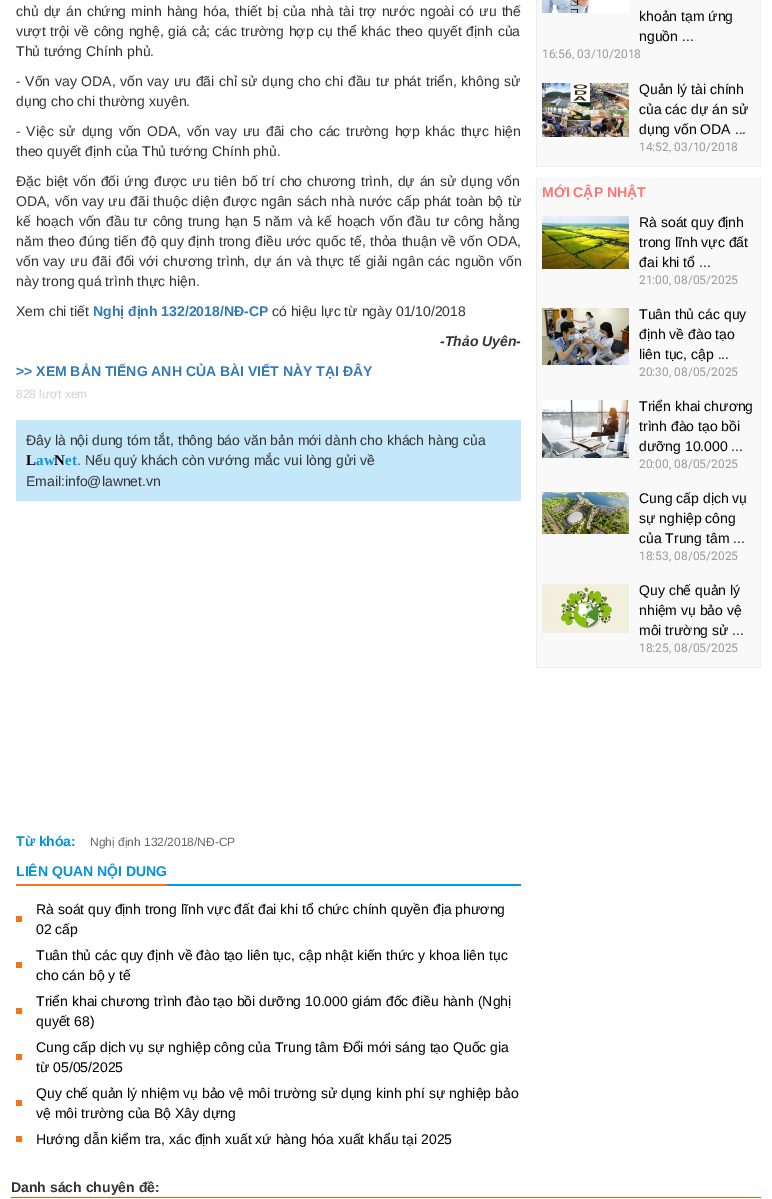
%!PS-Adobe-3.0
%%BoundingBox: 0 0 772 1199
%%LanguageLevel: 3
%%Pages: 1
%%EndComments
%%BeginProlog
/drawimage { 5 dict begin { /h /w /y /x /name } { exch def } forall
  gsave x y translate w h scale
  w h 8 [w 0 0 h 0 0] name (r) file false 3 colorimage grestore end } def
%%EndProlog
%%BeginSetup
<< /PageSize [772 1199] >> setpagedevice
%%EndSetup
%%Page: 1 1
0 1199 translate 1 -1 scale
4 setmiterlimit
1 setgray
0 0 772 1199 rectfill
0.769 0.906 0.976 setrgbcolor
16 420 505 81 rectfill
0.012 0.596 0.894 setrgbcolor
167 884 354 2 rectfill
0.984 0.451 0.106 setrgbcolor
16 884 151 2 rectfill
0.973 0.447 0.106 setrgbcolor
16 916 6 6 rectfill
16 962 6 6 rectfill
16 1008 6 6 rectfill
16 1054 6 6 rectfill
16 1100 6 6 rectfill
16 1136 6 6 rectfill
0.976 setgray
537 0 223 166 rectfill
0.933 setgray
760 0 1 167 rectfill
536 166 225 1 rectfill
536 0 1 167 rectfill
(images/1.raw) 542 0 87 13 drawimage
(images/2.raw) 542 83 87 54 drawimage
0.976 setgray
537 177 223 490 rectfill
0.933 setgray
760 177 1 491 rectfill
536 667 225 1 rectfill
536 177 1 491 rectfill
(images/3.raw) 542 216 87 53 drawimage
(images/4.raw) 542 308 87 57 drawimage
(images/5.raw) 542 400 87 58 drawimage
(images/6.raw) 542 492 87 42 drawimage
(images/7.raw) 542 584 87 49 drawimage
0.8 0.4 0 setrgbcolor
11 1197 750 1 rectfill
/LiberationSans-Regular [14 0 0 -14 0 0] selectfont
0.2 setgray
16 16 moveto 1.2 0 32 (chủ dự án chứng minh hàng hóa, thiết bị của nhà tài trợ nước ngoài có ưu thế) widthshow
16 36 moveto 0.75 0 32 (vượt trội về công nghệ, giá cả; các trường hợp cụ thể khác theo quyết định của) widthshow
16 56 moveto (Thủ tướng Chính phủ.) show
16 86 moveto 0.75 0 32 (- Vốn vay ODA, vốn vay ưu đãi chỉ sử dụng cho chi đầu tư phát triển, không sử) widthshow
16 106 moveto (dụng cho chi thường xuyên.) show
16 136 moveto 1.9 0 32 (- Việc sử dụng vốn ODA, vốn vay ưu đãi cho các trường hợp khác thực hiện) widthshow
16 156 moveto (theo quyết định của Thủ tướng Chính phủ.) show
16 186 moveto 1 0 32 (Đặc biệt vốn đối ứng được ưu tiên bố trí cho chương trình, dự án sử dụng vốn) widthshow
16 206 moveto 0.7 0 32 (ODA, vốn vay ưu đãi thuộc diện được ngân sách nhà nước cấp phát toàn bộ từ) widthshow
16 226 moveto 1 0 32 (kế hoạch vốn đầu tư công trung hạn 5 năm và kế hoạch vốn đầu tư công hằng) widthshow
16 246 moveto 0.4 0 32 (năm theo đúng tiến độ quy định trong điều ước quốc tế, thỏa thuận về vốn ODA,) widthshow
16 266 moveto 1 0 32 (vốn vay ưu đãi đối với chương trình, dự án và thực tế giải ngân các nguồn vốn) widthshow
16 286 moveto (này trong quá trình thực hiện.) show
16 316 moveto (Xem chi tiết) show
/LiberationSans-Bold [14 0 0 -14 0 0] selectfont
0.2 0.478 0.718 setrgbcolor
93 316 moveto (Nghị định 132/2018/NĐ-CP) show
/LiberationSans-Regular [14 0 0 -14 0 0] selectfont
0.2 setgray
272 316 moveto (có hiệu lực từ ngày 01/10/2018) show
/LiberationSans-BoldItalic [14 0 0 -14 0 0] selectfont
440 346 moveto (-Thảo Uyên-) show
/LiberationSans-Bold [14 0 0 -14 0 0] selectfont
0.2 0.478 0.718 setrgbcolor
16 376 moveto (>> XEM BẢN TIẾNG ANH CỦA BÀI VIẾT NÀY TẠI ĐÂY) show
/LiberationSans-Regular [12 0 0 -12 0 0] selectfont
0.824 0.816 0.816 setrgbcolor
16 398 moveto (828 lượt xem) show
/LiberationSans-Regular [14 0 0 -14 0 0] selectfont
0.2 setgray
26 445 moveto (Đây là nội dung tóm tắt, thông báo văn bản mới dành cho khách hàng của) show
/LiberationSerif-Bold [15 0 0 -15 0 0] selectfont
0 setgray
26 465 moveto (L) show
0.016 0.573 0.859 setrgbcolor
36 465 moveto (aw) show
0 setgray
54 465 moveto (N) show
0.016 0.573 0.859 setrgbcolor
65 465 moveto (et) show
/LiberationSans-Regular [14 0 0 -14 0 0] selectfont
0.2 setgray
77 465 moveto (. Nếu quý khách còn vướng mắc vui lòng gửi về) show
26 486 moveto (Email:info@lawnet.vn) show
/LiberationSans-Bold [14 0 0 -14 0 0] selectfont
0.016 0.573 0.859 setrgbcolor
16 846 moveto (Từ khóa:) show
/LiberationSans-Regular [12 0 0 -12 0 0] selectfont
0.4 setgray
90 846 moveto (Nghị định 132/2018/NĐ-CP) show
/LiberationSans-Bold [14 0 0 -14 0 0] selectfont
0.016 0.573 0.859 setrgbcolor
16 876 moveto (LIÊN QUAN NỘI DUNG) show
/LiberationSans-Regular [14 0 0 -14 0 0] selectfont
0 setgray
36 914 moveto (Rà soát quy định trong lĩnh vực đất đai khi tổ chức chính quyền địa phương) show
36 934 moveto (02 cấp) show
36 960 moveto (Tuân thủ các quy định về đào tạo liên tục, cập nhật kiến thức y khoa liên tục) show
36 980 moveto (cho cán bộ y tế) show
36 1006 moveto (Triển khai chương trình đào tạo bồi dưỡng 10.000 giám đốc điều hành \(Nghị) show
36 1026 moveto (quyết 68\)) show
36 1052 moveto (Cung cấp dịch vụ sự nghiệp công của Trung tâm Đổi mới sáng tạo Quốc gia) show
36 1072 moveto (từ 05/05/2025) show
36 1098 moveto (Quy chế quản lý nhiệm vụ bảo vệ môi trường sử dụng kinh phí sự nghiệp bảo) show
36 1118 moveto (vệ môi trường của Bộ Xây dựng) show
36 1144 moveto (Hướng dẫn kiểm tra, xác định xuất xứ hàng hóa xuất khẩu tại 2025) show
639 21 moveto (khoản tạm ứng) show
639 41 moveto (nguồn ...) show
/Roboto-Regular [12 0 0 -12 0 0] selectfont
0.6 setgray
542 58 moveto (16:56, 03/10/2018) show
/LiberationSans-Regular [14 0 0 -14 0 0] selectfont
0 setgray
639 94 moveto (Quản lý tài chính) show
639 114 moveto (của các dự án sử) show
639 134 moveto (dụng vốn ODA ...) show
/Roboto-Regular [12 0 0 -12 0 0] selectfont
0.6 setgray
639 151 moveto (14:52, 03/10/2018) show
/LiberationSans-Bold [14 0 0 -14 0 0] selectfont
1 0.451 0.451 setrgbcolor
542 197 moveto (MỚI CẬP NHẬT) show
/LiberationSans-Regular [14 0 0 -14 0 0] selectfont
0 setgray
639 227 moveto (Rà soát quy định) show
639 247 moveto (trong lĩnh vực đất) show
639 267 moveto (đai khi tổ ...) show
/Roboto-Regular [12 0 0 -12 0 0] selectfont
0.6 setgray
639 284 moveto (21:00, 08/05/2025) show
/LiberationSans-Regular [14 0 0 -14 0 0] selectfont
0 setgray
639 319 moveto (Tuân thủ các quy) show
639 339 moveto (định về đào tạo) show
639 359 moveto (liên tục, cập ...) show
/Roboto-Regular [12 0 0 -12 0 0] selectfont
0.6 setgray
639 376 moveto (20:30, 08/05/2025) show
/LiberationSans-Regular [14 0 0 -14 0 0] selectfont
0 setgray
639 411 moveto (Triển khai chương) show
639 431 moveto (trình đào tạo bồi) show
639 451 moveto (dưỡng 10.000 ...) show
/Roboto-Regular [12 0 0 -12 0 0] selectfont
0.6 setgray
639 468 moveto (20:00, 08/05/2025) show
/LiberationSans-Regular [14 0 0 -14 0 0] selectfont
0 setgray
639 503 moveto (Cung cấp dịch vụ) show
639 523 moveto (sự nghiệp công) show
639 543 moveto (của Trung tâm ...) show
/Roboto-Regular [12 0 0 -12 0 0] selectfont
0.6 setgray
639 560 moveto (18:53, 08/05/2025) show
/LiberationSans-Regular [14 0 0 -14 0 0] selectfont
0 setgray
639 595 moveto (Quy chế quản lý) show
639 615 moveto (nhiệm vụ bảo vệ) show
639 635 moveto (môi trường sử ...) show
/Roboto-Regular [12 0 0 -12 0 0] selectfont
0.6 setgray
639 652 moveto (18:25, 08/05/2025) show
/LiberationSans-Bold [14 0 0 -14 0 0] selectfont
0.2 setgray
11 1192 moveto (Danh sách chuyên đề:) show
showpage
%%EOF
